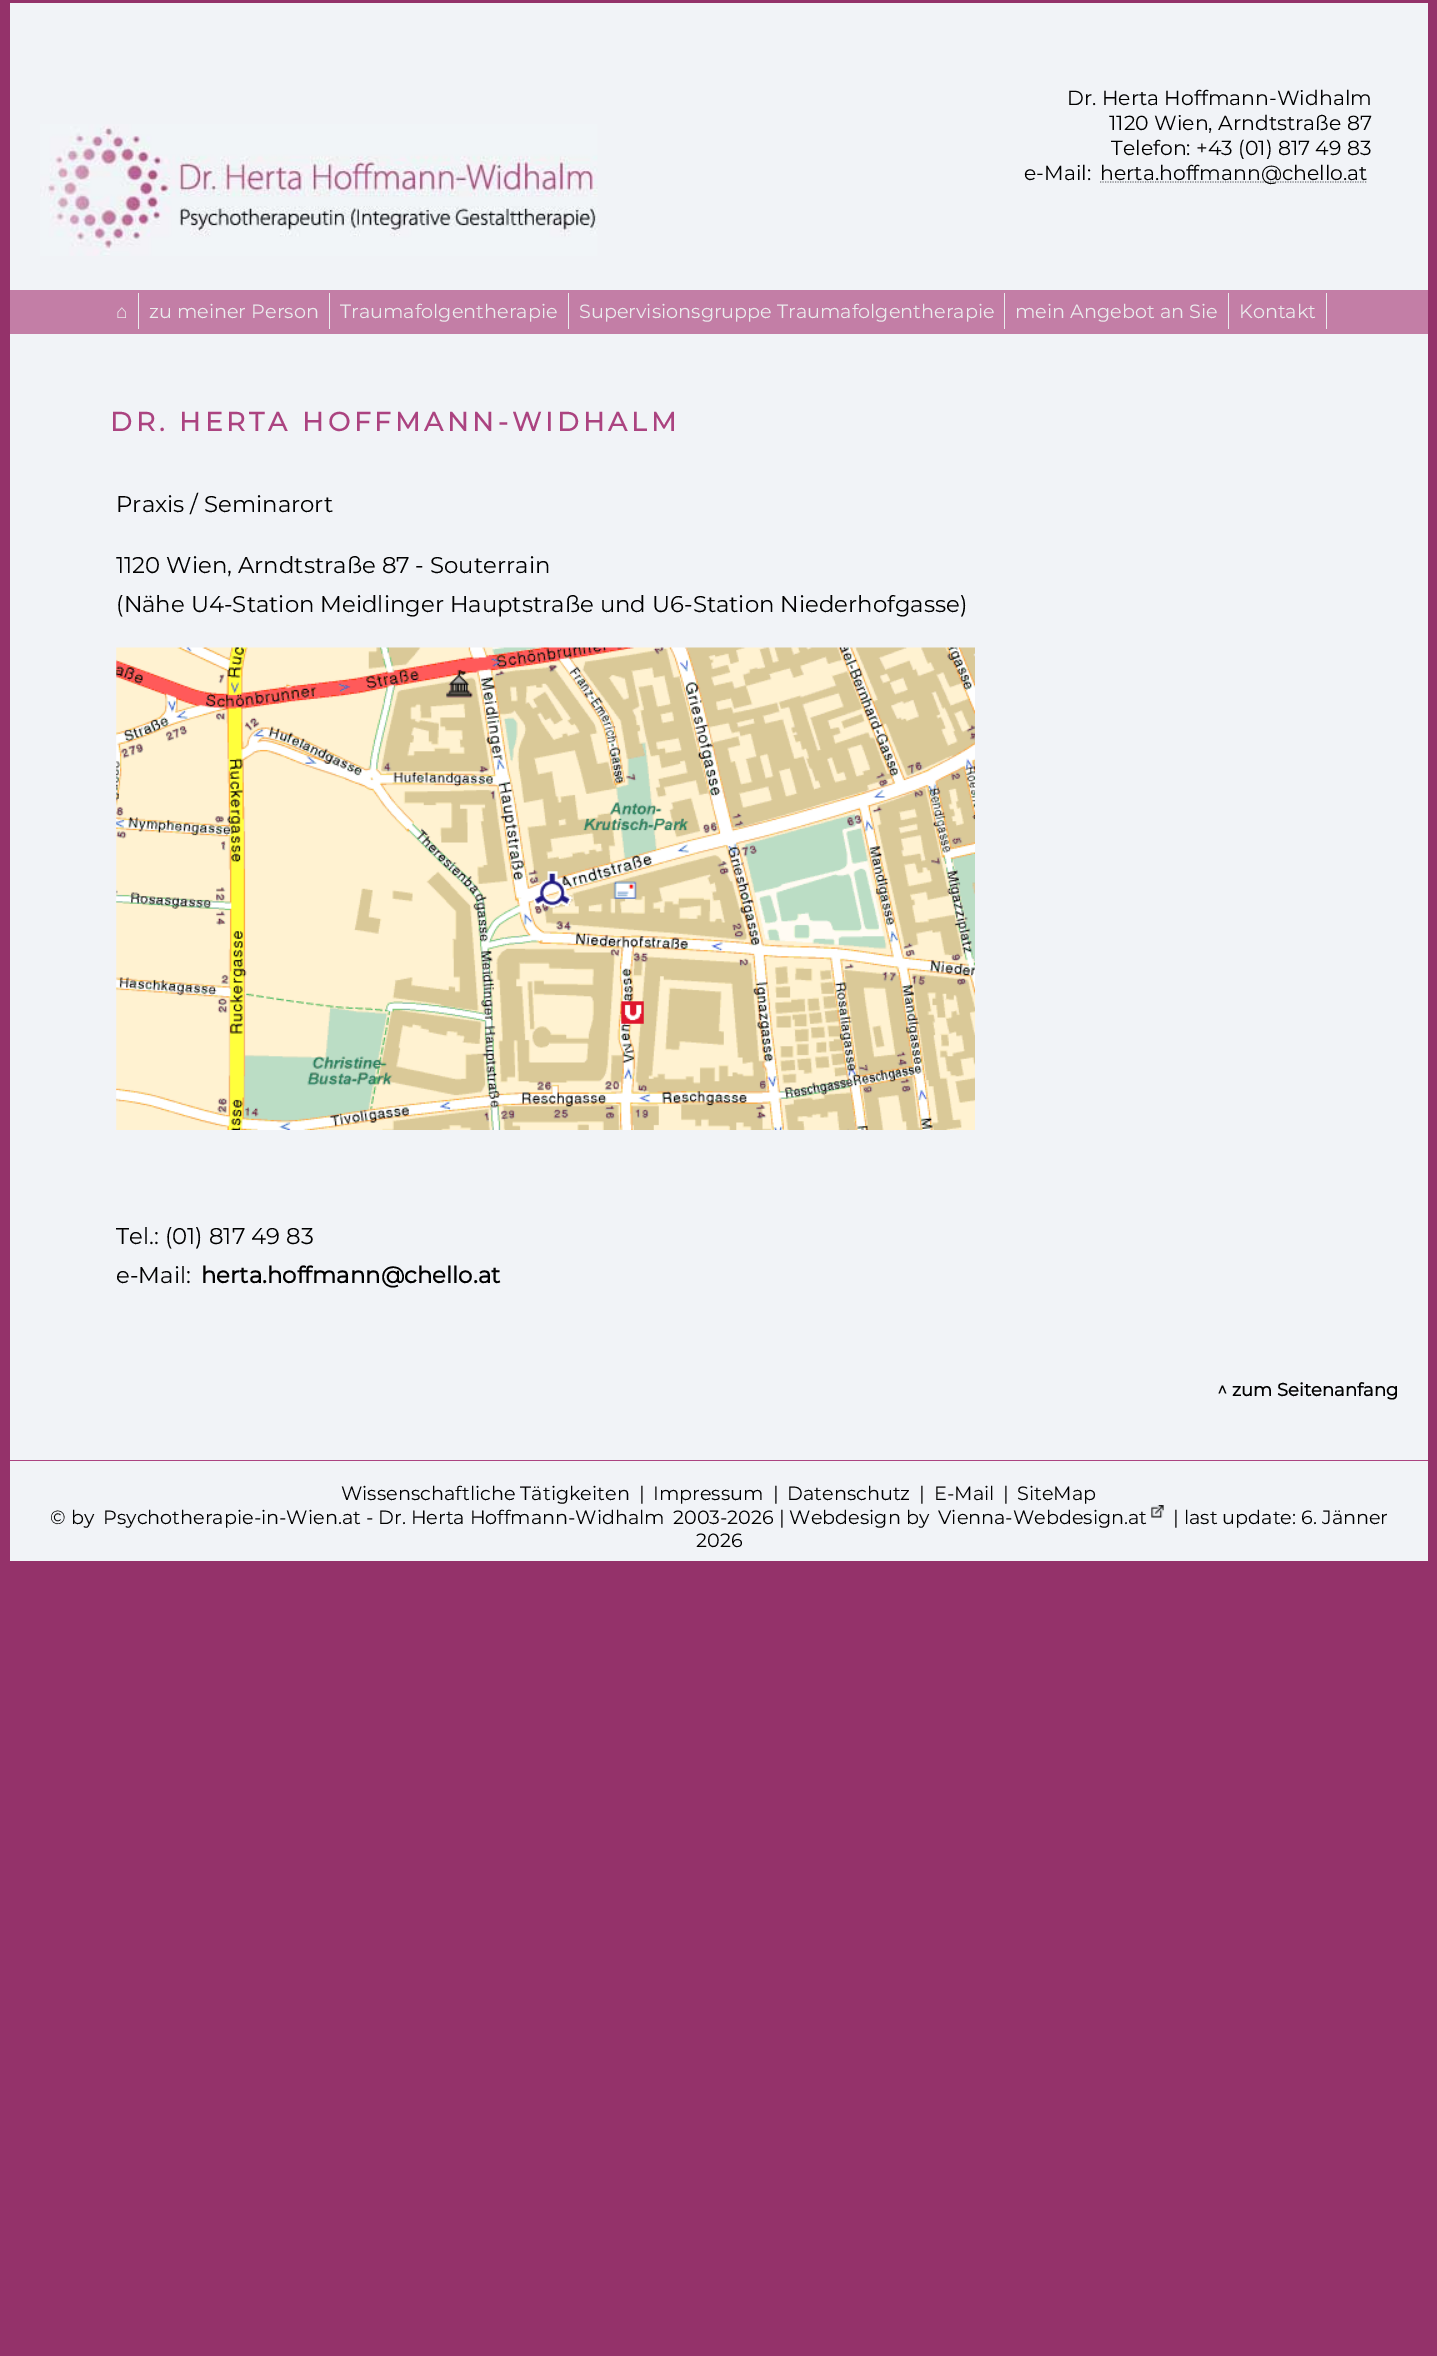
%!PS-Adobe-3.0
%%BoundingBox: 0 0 1437 2356
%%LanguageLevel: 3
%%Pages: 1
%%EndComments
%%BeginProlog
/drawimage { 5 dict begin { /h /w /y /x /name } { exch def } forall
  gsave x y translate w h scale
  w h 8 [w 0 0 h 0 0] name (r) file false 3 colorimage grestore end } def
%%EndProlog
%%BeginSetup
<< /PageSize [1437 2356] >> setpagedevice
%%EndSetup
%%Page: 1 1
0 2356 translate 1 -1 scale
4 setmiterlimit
0.58 0.196 0.416 setrgbcolor
0 0 1437 2356 rectfill
0.765 0.494 0.651 setrgbcolor
10 290 1418 44 rectfill
0.945 0.953 0.969 setrgbcolor
10 3 1418 287 rectfill
(images/1.raw) 40 124 558 132 drawimage
0.522 0.529 0.545 setrgbcolor
1.2 setlinewidth
[1.25 1.25] 0 setdash
newpath 1100 182 moveto 1367.5 182 lineto stroke
0.922 0.925 0.933 setrgbcolor
138 293 1 36 rectfill
329 293 1 36 rectfill
568 293 1 36 rectfill
1004 293 1 36 rectfill
1228 293 1 36 rectfill
1326 293 1 36 rectfill
0.945 0.953 0.969 setrgbcolor
10 334 1418 1126 rectfill
(images/2.raw) 116 647 859 483 drawimage
10 1461 1418 100 rectfill
0.671 0.263 0.502 setrgbcolor
10 1460 1418 1 rectfill
(images/3.raw) 1151 1505 13 13 drawimage
/Montserrat-Regular [20.4 0 0 -20.4 0 0] selectfont
0 setgray
1067 105 moveto (Dr. Herta Hoffmann-Widhalm) show
1109 130 moveto (1120 Wien, Arndtstraße 87) show
1111 155 moveto (Telefon: +43 \(01\) 817 49 83) show
1024 180 moveto (e-Mail:) show
1100 180 moveto (herta.hoffmann@chello.at) show
/LiberationSans-Regular [19.2 0 0 -19.2 0 0] selectfont
0.922 0.925 0.933 setrgbcolor
116 318 moveto (⌂) show
/Montserrat-Regular [19.2 0 0 -19.2 0 0] selectfont
149 318 moveto (zu meiner Person) show
340 318 moveto (Traumafolgentherapie) show
579 318 moveto (Supervisionsgruppe Traumafolgentherapie) show
1015 318 moveto (mein Angebot an Sie) show
1239 318 moveto (Kontakt) show
/Montserrat-Bold [26.4 0 0 -26.4 0 0] selectfont
0.671 0.263 0.502 setrgbcolor
110 431 moveto 3.95 0 (DR. HERTA HOFFMANN-WIDHALM) ashow
/Montserrat-Regular [22.8 0 0 -22.8 0 0] selectfont
0 setgray
116 512 moveto (Praxis / Seminarort) show
116 573 moveto (1120 Wien, Arndtstraße 87 - Souterrain) show
116 612 moveto (\(Nähe U4-Station Meidlinger Hauptstraße und U6-Station Niederhofgasse\)) show
116 1244 moveto (Tel.: \(01\) 817 49 83) show
116 1283 moveto (e-Mail:) show
/Montserrat-Bold [22.8 0 0 -22.8 0 0] selectfont
201 1283 moveto (herta.hoffmann@chello.at) show
/Montserrat-Bold [18 0 0 -18 0 0] selectfont
1217 1396 moveto (^ zum Seitenanfang) show
/Montserrat-Regular [19.2 0 0 -19.2 0 0] selectfont
341 1500 moveto (Wissenschaftliche Tätigkeiten) show
639 1500 moveto (|) show
653 1500 moveto (Impressum) show
773 1500 moveto (|) show
787 1500 moveto (Datenschutz) show
919 1500 moveto (|) show
934 1500 moveto (E-Mail) show
1003 1500 moveto (|) show
1017 1500 moveto (SiteMap) show
50 1524 moveto (© by) show
103 1524 moveto (Psychotherapie-in-Wien.at - Dr. Herta Hoffmann-Widhalm) show
673 1524 moveto (2003-2026 | Webdesign by) show
938 1524 moveto (Vienna-Webdesign.at) show
1173 1524 moveto (| last update: 6. Jänner) show
696 1547 moveto (2026) show
showpage
%%EOF
